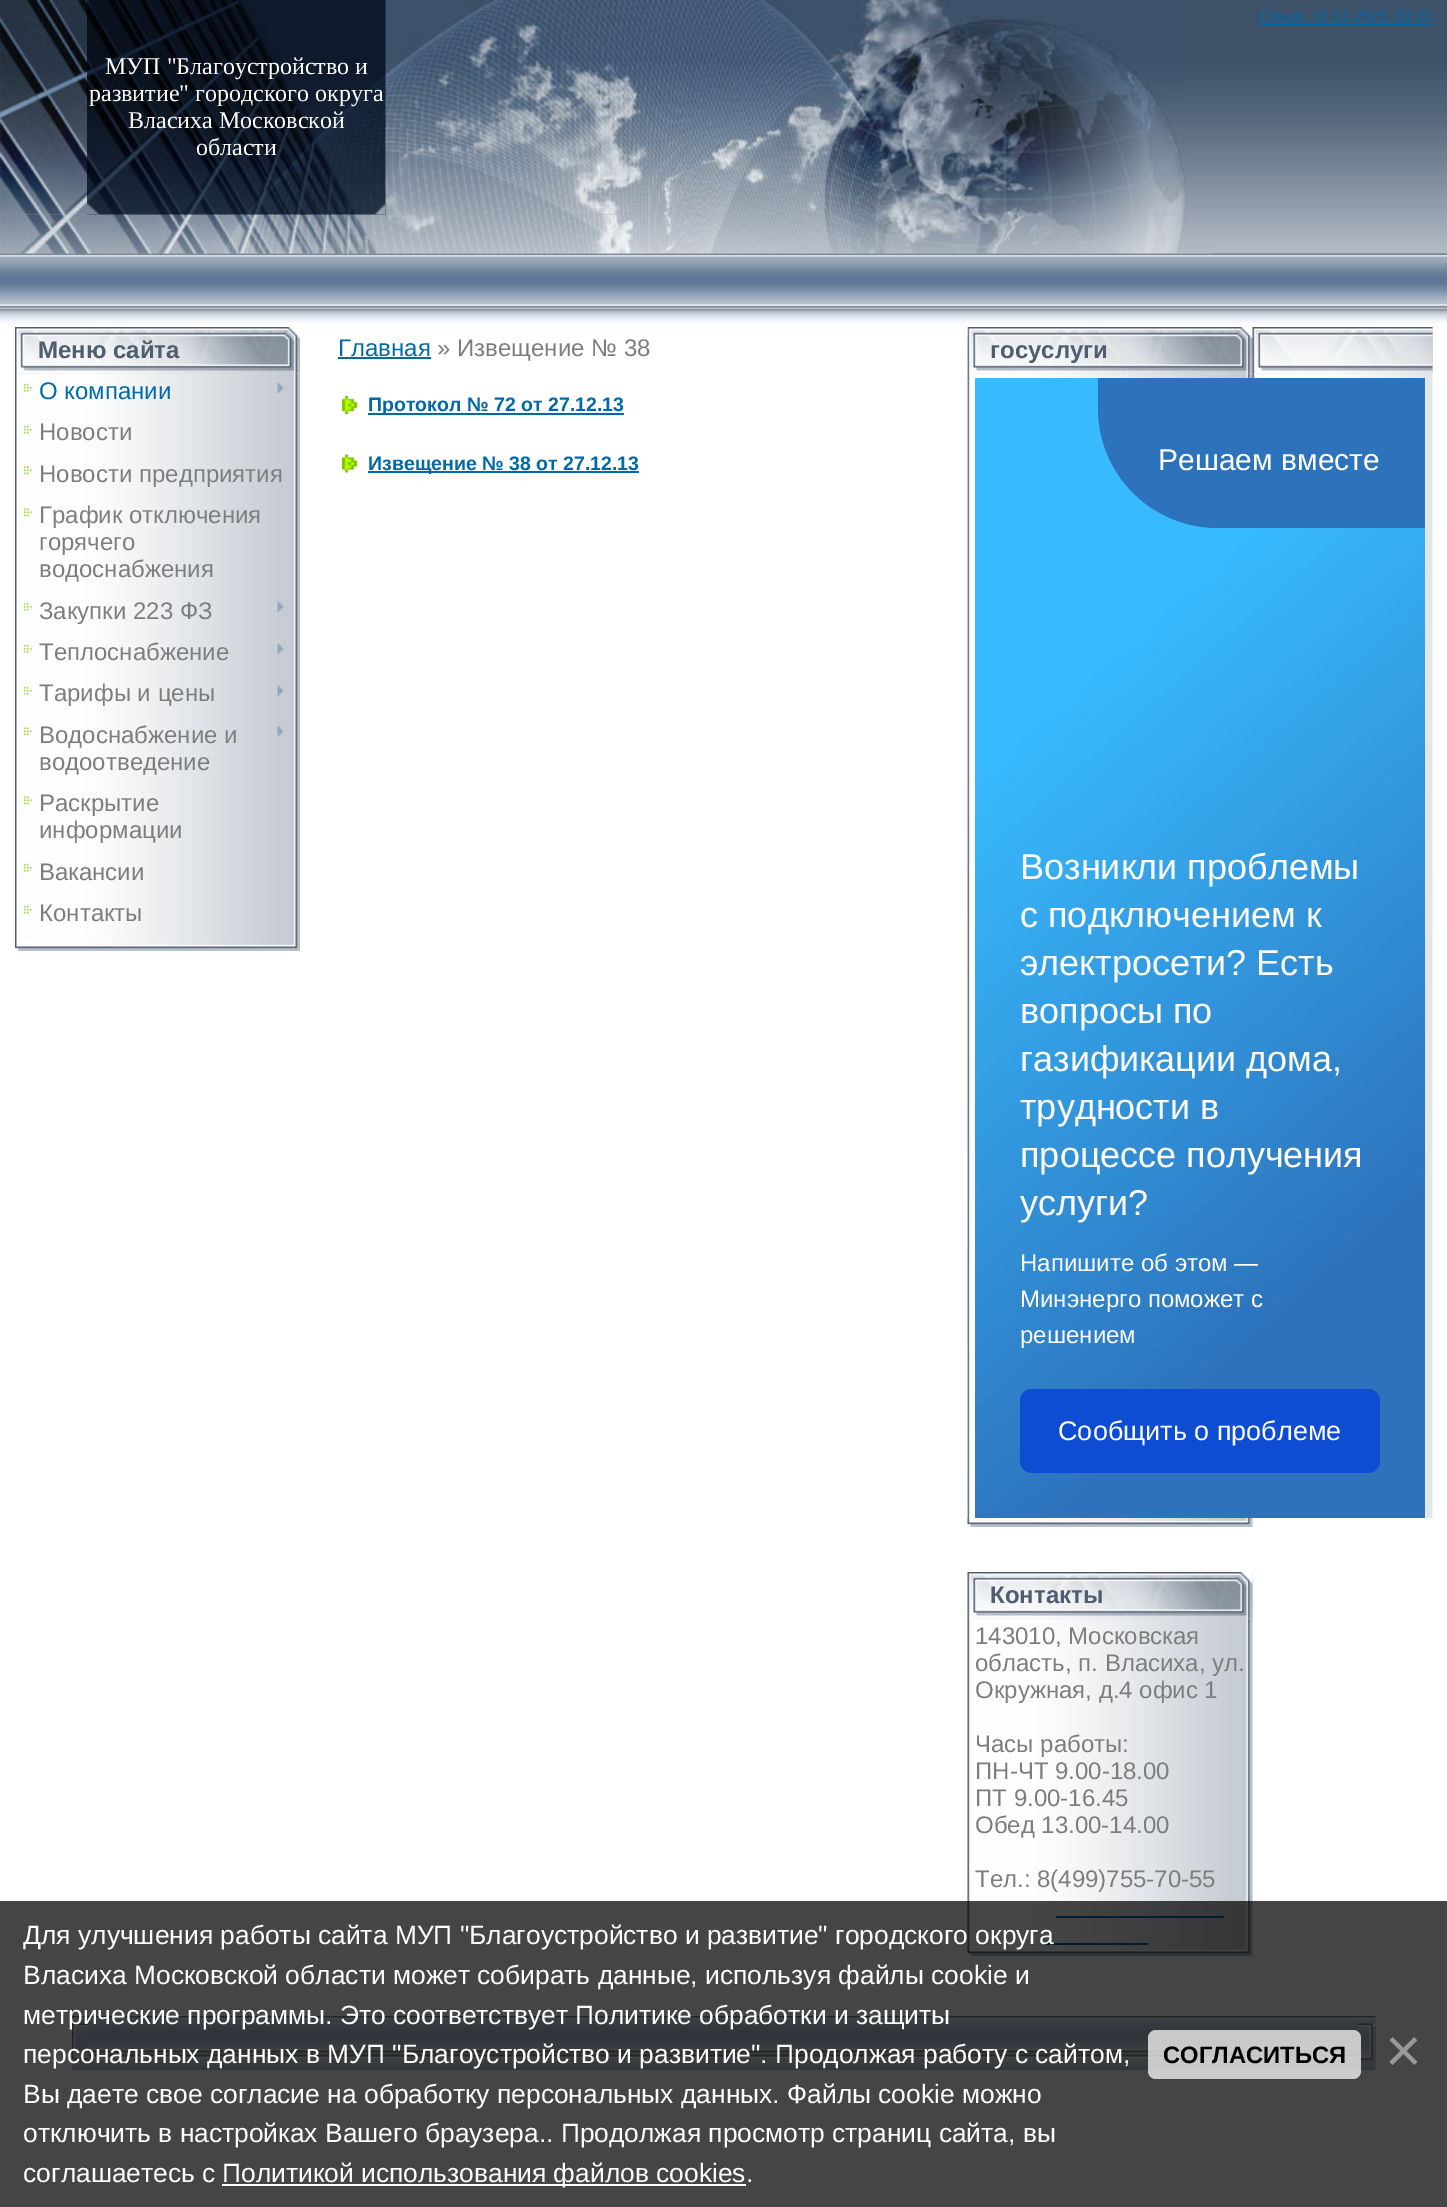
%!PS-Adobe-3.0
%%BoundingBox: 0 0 1447 2207
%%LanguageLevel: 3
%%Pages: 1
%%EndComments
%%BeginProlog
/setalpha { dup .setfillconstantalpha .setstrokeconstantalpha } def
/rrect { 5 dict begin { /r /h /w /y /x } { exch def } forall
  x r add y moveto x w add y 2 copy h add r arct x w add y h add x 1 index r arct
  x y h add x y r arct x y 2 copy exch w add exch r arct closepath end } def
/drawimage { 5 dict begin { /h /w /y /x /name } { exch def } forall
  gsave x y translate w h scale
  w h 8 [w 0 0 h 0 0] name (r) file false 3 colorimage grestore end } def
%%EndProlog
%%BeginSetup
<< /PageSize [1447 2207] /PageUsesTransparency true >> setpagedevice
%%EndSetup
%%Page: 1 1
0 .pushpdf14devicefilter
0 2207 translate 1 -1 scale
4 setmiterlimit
1 setgray
0 0 1447 2207 rectfill
(images/1.raw) 0 0 1447 323 drawimage
(images/2.raw) 0 0 87 215 drawimage
0.059 0.102 0.169 setrgbcolor
87 0 299 215 rectfill
(images/4.raw) 87 0 299 215 drawimage
(images/3.raw) 385 0 801 215 drawimage
0 0.412 0.663 setrgbcolor
1259 23 174 2 rectfill
(images/5.raw) 0 214 87 40 drawimage
(images/7.raw) 385 214 829 40 drawimage
(images/6.raw) 87 214 299 40 drawimage
(images/8.raw) 15 327 285 47 drawimage
(images/9.raw) 15 373 285 569 drawimage
(images/10.raw) 23 383 9 9 drawimage
(images/11.raw) 277 382 7 11 drawimage
(images/10.raw) 23 425 9 9 drawimage
(images/12.raw) 23 466 9 9 drawimage
(images/12.raw) 23 508 9 9 drawimage
(images/10.raw) 23 602 9 9 drawimage
(images/11.raw) 277 601 7 11 drawimage
(images/10.raw) 23 644 9 9 drawimage
(images/11.raw) 277 643 7 11 drawimage
(images/10.raw) 23 686 9 9 drawimage
(images/11.raw) 277 685 7 11 drawimage
(images/12.raw) 23 727 9 9 drawimage
(images/13.raw) 277 726 7 11 drawimage
(images/12.raw) 23 796 9 9 drawimage
(images/10.raw) 23 863 9 9 drawimage
(images/10.raw) 23 905 9 9 drawimage
(images/14.raw) 15 942 285 9 drawimage
338 357 93 2 rectfill
(images/15.raw) 342 396 16 18 drawimage
368 413 256 2 rectfill
(images/16.raw) 342 454 16 19 drawimage
368 471 271 2 rectfill
0.847 0.863 0.882 setrgbcolor
968 327 465 47 rectfill
(images/17.raw) 967 327 466 47 drawimage
(images/18.raw) 967 373 466 1145 drawimage
gsave newpath 975 378 moveto 1425 378 lineto 1425 1518 lineto 975 1518 lineto closepath clip newpath
<< /ShadingType 2 /ColorSpace /DeviceRGB /Coords [818 518 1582 1378] /Extend [true true] /Function << /FunctionType 3 /Domain [0 1] /Functions [<< /FunctionType 2 /Domain [0 1] /C0 [0.22 0.729 0.996] /C1 [0.22 0.729 0.996] /N 1 >> << /FunctionType 2 /Domain [0 1] /C0 [0.22 0.729 0.996] /C1 [0.176 0.451 0.737] /N 1 >> << /FunctionType 2 /Domain [0 1] /C0 [0.176 0.451 0.737] /C1 [0.176 0.451 0.737] /N 1 >>] /Bounds [0.26 0.79] /Encode [0 1 0 1 0 1] >> >> shfill grestore
0.176 0.451 0.737 setrgbcolor
newpath 1098 378 moveto 1425 378 lineto 1425 528 lineto 1218 528 lineto 1151.5 528 1098 474.5 1098 408 curveto closepath fill
0.051 0.298 0.827 setrgbcolor
1020 1389 360 84 12 rrect fill
(images/19.raw) 967 1518 286 9 drawimage
0.847 0.863 0.882 setrgbcolor
968 1572 285 47 rectfill
(images/20.raw) 967 1572 286 47 drawimage
(images/21.raw) 967 1618 286 329 drawimage
0 0.412 0.663 setrgbcolor
1056 1916 168 2 rectfill
1044 1943 104 2 rectfill
(images/19.raw) 967 1947 286 9 drawimage
(images/22.raw) 72 2016 1304 54 drawimage
(images/23.raw) 72 2023 17 40 drawimage
(images/24.raw) 1357 2023 19 40 drawimage
0.73 setalpha
0 setgray
0 1901 1447 306 rectfill
1 setalpha
1 setgray
222 2184 524 2 rectfill
0.73 setalpha
1148 2030 213 49 8 rrect fill
/LiberationSans-Regular [15 0 0 -15 0 0] selectfont
1 setalpha
0 0.412 0.663 setrgbcolor
1259 21 moveto (Среда, 10.12.2025, 02:22) show
/LiberationSerif-Regular [24 0 0 -24 0 0] selectfont
1 setgray
105 74 moveto (МУП "Благоустройство и) show
89 101 moveto (развитие" городского округа) show
128 128 moveto (Власиха Московской) show
196 155 moveto (области) show
/LiberationSans-Bold [24 0 0 -24 0 0] selectfont
0.31 0.365 0.443 setrgbcolor
38 358 moveto (Меню сайта) show
/LiberationSans-Regular [24 0 0 -24 0 0] selectfont
0 0.412 0.663 setrgbcolor
39 399 moveto (О компании) show
0.49 setgray
39 440 moveto (Новости) show
39 482 moveto (Новости предприятия) show
39 523 moveto (График отключения) show
39 550 moveto (горячего) show
39 577 moveto (водоснабжения) show
39 619 moveto (Закупки 223 ФЗ) show
39 660 moveto (Теплоснабжение) show
39 701 moveto (Тарифы и цены) show
39 743 moveto (Водоснабжение и) show
39 770 moveto (водоотведение) show
39 811 moveto (Раскрытие) show
39 838 moveto (информации) show
39 880 moveto (Вакансии) show
39 921 moveto (Контакты) show
0 0.412 0.663 setrgbcolor
338 356 moveto (Главная) show
0.49 setgray
437 356 moveto (» Извещение № 38) show
/LiberationSans-Bold [19.5 0 0 -19.5 0 0] selectfont
0 0.412 0.663 setrgbcolor
368 411 moveto (Протокол № 72 от 27.12.13) show
368 470 moveto (Извещение № 38 от 27.12.13) show
/LiberationSans-Bold [24 0 0 -24 0 0] selectfont
0.31 0.365 0.443 setrgbcolor
990 358 moveto (госуслуги) show
/LiberationSans-Regular [30 0 0 -30 0 0] selectfont
1 setgray
1158 470 moveto (Решаем вместе) show
/LiberationSans-Regular [36 0 0 -36 0 0] selectfont
1020 879 moveto (Возникли проблемы) show
1020 927 moveto (с подключением к) show
1020 975 moveto (электросети? Есть) show
1020 1023 moveto (вопросы по) show
1020 1071 moveto (газификации дома,) show
1020 1119 moveto (трудности в) show
1020 1167 moveto (процессе получения) show
1020 1215 moveto (услуги?) show
/LiberationSans-Regular [24 0 0 -24 0 0] selectfont
1020 1271 moveto (Напишите об этом —) show
1020 1307 moveto (Минэнерго поможет с) show
1020 1343 moveto (решением) show
/LiberationSans-Regular [27 0 0 -27 0 0] selectfont
1058 1440 moveto (Сообщить о проблеме) show
/LiberationSans-Bold [24 0 0 -24 0 0] selectfont
0.31 0.365 0.443 setrgbcolor
990 1603 moveto (Контакты) show
/LiberationSans-Regular [24 0 0 -24 0 0] selectfont
0.49 setgray
975 1644 moveto (143010, Московская) show
975 1671 moveto (область, п. Власиха, ул.) show
975 1698 moveto (Окружная, д.4 офис 1) show
975 1752 moveto (Часы работы:) show
975 1779 moveto (ПН-ЧТ 9.00-18.00) show
975 1806 moveto (ПТ 9.00-16.45) show
975 1833 moveto (Обед 13.00-14.00) show
975 1887 moveto (Тел.: 8\(499\)755-70-55) show
/LiberationSans-Regular [26.4 0 0 -26.4 0 0] selectfont
1 setgray
23 1944 moveto (Для улучшения работы сайта МУП "Благоустройство и развитие" городского округа) show
23 1984 moveto (Власиха Московской области может собирать данные, используя файлы cookie и) show
23 2024 moveto (метрические программы. Это соответствует Политике обработки и защиты) show
23 2063 moveto (персональных данных в МУП "Благоустройство и развитие". Продолжая работу с сайтом,) show
23 2103 moveto (Вы даете свое согласие на обработку персональных данных. Файлы cookie можно) show
23 2142 moveto (отключить в настройках Вашего браузера.. Продолжая просмотр страниц сайта, вы) show
23 2182 moveto (соглашаетесь с) show
222 2182 moveto (Политикой использования файлов cookies.) show
/LiberationSans-Bold [23.75 0 0 -23.75 0 0] selectfont
0 setgray
1163 2063 moveto (СОГЛАСИТЬСЯ) show
/LiberationSans-Regular [63 0 0 -63 0 0] selectfont
0.6 setgray
1385 2072 moveto (×) show
.poppdf14devicefilter showpage
%%EOF
